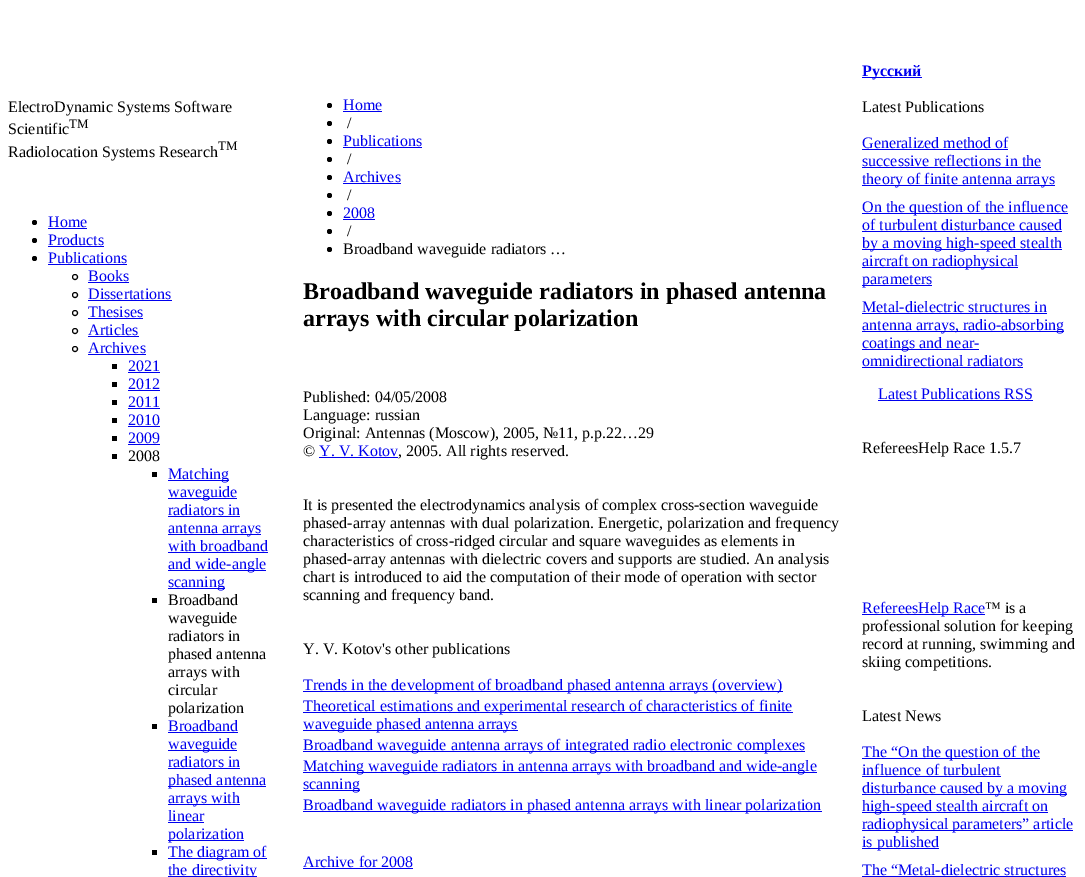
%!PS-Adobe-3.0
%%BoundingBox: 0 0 1085 877
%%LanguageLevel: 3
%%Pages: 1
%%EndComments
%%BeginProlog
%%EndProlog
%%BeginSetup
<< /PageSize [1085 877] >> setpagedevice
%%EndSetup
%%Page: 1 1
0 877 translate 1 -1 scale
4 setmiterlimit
1 setgray
0 0 1085 877 rectfill
0 0 0.933 setrgbcolor
862 77 60 1 rectfill
0 setgray
newpath 34.5 222.5 2.5 0 360 arc closepath fill
0 0 0.933 setrgbcolor
48 228 39 1 rectfill
0 setgray
newpath 34.5 240.5 2.5 0 360 arc closepath fill
0 0 0.933 setrgbcolor
48 246 56 1 rectfill
0 setgray
newpath 34.5 258.5 2.5 0 360 arc closepath fill
0 0 0.933 setrgbcolor
48 264 79 1 rectfill
0 setgray
newpath 75 277 2.5 0 360 arc closepath stroke
0 0 0.933 setrgbcolor
88 282 41 1 rectfill
0 setgray
newpath 75 295 2.5 0 360 arc closepath stroke
0 0 0.933 setrgbcolor
88 300 84 1 rectfill
0 setgray
newpath 75 313 2.5 0 360 arc closepath stroke
0 0 0.933 setrgbcolor
88 318 55 1 rectfill
0 setgray
newpath 75 331 2.5 0 360 arc closepath stroke
0 0 0.933 setrgbcolor
88 336 51 1 rectfill
0 setgray
newpath 75 349 2.5 0 360 arc closepath stroke
0 0 0.933 setrgbcolor
88 354 58 1 rectfill
0 setgray
112 364 5 5 rectfill
0 0 0.933 setrgbcolor
128 372 32 1 rectfill
0 setgray
112 382 5 5 rectfill
0 0 0.933 setrgbcolor
128 390 32 1 rectfill
0 setgray
112 400 5 5 rectfill
0 0 0.933 setrgbcolor
128 408 32 1 rectfill
0 setgray
112 418 5 5 rectfill
0 0 0.933 setrgbcolor
128 426 32 1 rectfill
0 setgray
112 436 5 5 rectfill
0 0 0.933 setrgbcolor
128 444 32 1 rectfill
0 setgray
112 454 5 5 rectfill
152 472 5 5 rectfill
0 0 0.933 setrgbcolor
168 480 61 1 rectfill
168 498 69 1 rectfill
168 516 72 1 rectfill
168 534 93 1 rectfill
168 552 100 1 rectfill
168 570 98 1 rectfill
168 588 57 1 rectfill
0 setgray
152 598 5 5 rectfill
152 724 5 5 rectfill
0 0 0.933 setrgbcolor
168 732 70 1 rectfill
168 750 69 1 rectfill
168 768 72 1 rectfill
168 786 98 1 rectfill
168 804 72 1 rectfill
168 822 36 1 rectfill
168 840 76 1 rectfill
0 setgray
152 850 5 5 rectfill
0 0 0.933 setrgbcolor
168 858 99 1 rectfill
168 876 89 1 rectfill
0 setgray
newpath 329.5 105.5 2.5 0 360 arc closepath fill
0 0 0.933 setrgbcolor
343 111 39 1 rectfill
0 setgray
newpath 329.5 123.5 2.5 0 360 arc closepath fill
newpath 329.5 141.5 2.5 0 360 arc closepath fill
0 0 0.933 setrgbcolor
343 147 79 1 rectfill
0 setgray
newpath 329.5 159.5 2.5 0 360 arc closepath fill
newpath 329.5 177.5 2.5 0 360 arc closepath fill
0 0 0.933 setrgbcolor
343 183 58 1 rectfill
0 setgray
newpath 329.5 195.5 2.5 0 360 arc closepath fill
newpath 329.5 213.5 2.5 0 360 arc closepath fill
0 0 0.933 setrgbcolor
343 219 32 1 rectfill
0 setgray
newpath 329.5 231.5 2.5 0 360 arc closepath fill
newpath 329.5 249.5 2.5 0 360 arc closepath fill
0 0 0.933 setrgbcolor
319 457 79 1 rectfill
303 691 480 1 rectfill
303 712 490 1 rectfill
303 730 215 1 rectfill
303 751 502 1 rectfill
303 772 514 1 rectfill
303 790 57 1 rectfill
303 811 519 1 rectfill
303 868 110 1 rectfill
862 149 146 1 rectfill
862 167 179 1 rectfill
862 185 193 1 rectfill
862 213 206 1 rectfill
862 231 200 1 rectfill
862 249 200 1 rectfill
862 267 156 1 rectfill
862 285 70 1 rectfill
862 313 185 1 rectfill
862 331 202 1 rectfill
862 349 117 1 rectfill
862 367 161 1 rectfill
878 400 155 1 rectfill
862 614 123 1 rectfill
862 758 178 1 rectfill
862 776 139 1 rectfill
862 794 205 1 rectfill
862 812 186 1 rectfill
862 830 211 1 rectfill
862 848 77 1 rectfill
862 876 204 1 rectfill
/LiberationSerif-Bold [16 0 0 -16 0 0] selectfont
862 76 moveto (Русский) show
/LiberationSerif-Regular [16 0 0 -16 0 0] selectfont
0 setgray
8 112 moveto (ElectroDynamic Systems Software) show
8 134 moveto (Scientific) show
/LiberationSerif-Regular [13 0 0 -13 0 0] selectfont
69 128 moveto (TM) show
/LiberationSerif-Regular [16 0 0 -16 0 0] selectfont
8 157 moveto (Radiolocation Systems Research) show
/LiberationSerif-Regular [13 0 0 -13 0 0] selectfont
218 150 moveto (TM) show
/LiberationSerif-Regular [16 0 0 -16 0 0] selectfont
0 0 0.933 setrgbcolor
48 227 moveto (Home) show
48 245 moveto (Products) show
48 263 moveto (Publications) show
88 281 moveto (Books) show
88 299 moveto (Dissertations) show
88 317 moveto (Thesises) show
88 335 moveto (Articles) show
88 353 moveto (Archives) show
128 371 moveto (2021) show
128 389 moveto (2012) show
128 407 moveto (2011) show
128 425 moveto (2010) show
128 443 moveto (2009) show
0 setgray
128 461 moveto (2008) show
0 0 0.933 setrgbcolor
168 479 moveto (Matching) show
168 497 moveto (waveguide) show
168 515 moveto (radiators in) show
168 533 moveto (antenna arrays) show
168 551 moveto (with broadband) show
168 569 moveto (and wide-angle) show
168 587 moveto (scanning) show
0 setgray
168 605 moveto (Broadband) show
168 623 moveto (waveguide) show
168 641 moveto (radiators in) show
168 659 moveto (phased antenna) show
168 677 moveto (arrays with) show
168 695 moveto (circular) show
168 713 moveto (polarization) show
0 0 0.933 setrgbcolor
168 731 moveto (Broadband) show
168 749 moveto (waveguide) show
168 767 moveto (radiators in) show
168 785 moveto (phased antenna) show
168 803 moveto (arrays with) show
168 821 moveto (linear) show
168 839 moveto (polarization) show
168 857 moveto (The diagram of) show
168 875 moveto (the directivity) show
343 110 moveto (Home) show
0 setgray
347 128 moveto (/) show
0 0 0.933 setrgbcolor
343 146 moveto (Publications) show
0 setgray
347 164 moveto (/) show
0 0 0.933 setrgbcolor
343 182 moveto (Archives) show
0 setgray
347 200 moveto (/) show
0 0 0.933 setrgbcolor
343 218 moveto (2008) show
0 setgray
347 236 moveto (/) show
343 254 moveto (Broadband waveguide radiators …) show
/LiberationSerif-Bold [24 0 0 -24 0 0] selectfont
303 299 moveto (Broadband waveguide radiators in phased antenna) show
303 326 moveto (arrays with circular polarization) show
/LiberationSerif-Regular [16 0 0 -16 0 0] selectfont
303 402 moveto (Published: 04/05/2008) show
303 420 moveto (Language: russian) show
303 438 moveto (Original: Antennas \(Moscow\), 2005, №11, p.p.22…29) show
303 456 moveto (©) show
0 0 0.933 setrgbcolor
319 456 moveto (Y. V. Kotov) show
0 setgray
398 456 moveto (, 2005. All rights reserved.) show
303 510 moveto (It is presented the electrodynamics analysis of complex cross-section waveguide) show
303 528 moveto (phased-array antennas with dual polarization. Energetic, polarization and frequency) show
303 546 moveto (characteristics of cross-ridged circular and square waveguides as elements in) show
303 564 moveto (phased-array antennas with dielectric covers and supports are studied. An analysis) show
303 582 moveto (chart is introduced to aid the computation of their mode of operation with sector) show
303 600 moveto (scanning and frequency band.) show
303 654 moveto (Y. V. Kotov's other publications) show
0 0 0.933 setrgbcolor
303 690 moveto (Trends in the development of broadband phased antenna arrays \(overview\)) show
303 711 moveto (Theoretical estimations and experimental research of characteristics of finite) show
303 729 moveto (waveguide phased antenna arrays) show
303 750 moveto (Broadband waveguide antenna arrays of integrated radio electronic complexes) show
303 771 moveto (Matching waveguide radiators in antenna arrays with broadband and wide-angle) show
303 789 moveto (scanning) show
303 810 moveto (Broadband waveguide radiators in phased antenna arrays with linear polarization) show
303 867 moveto (Archive for 2008) show
0 setgray
862 112 moveto (Latest Publications) show
0 0 0.933 setrgbcolor
862 148 moveto (Generalized method of) show
862 166 moveto (successive reflections in the) show
862 184 moveto (theory of finite antenna arrays) show
862 212 moveto (On the question of the influence) show
862 230 moveto (of turbulent disturbance caused) show
862 248 moveto (by a moving high-speed stealth) show
862 266 moveto (aircraft on radiophysical) show
862 284 moveto (parameters) show
862 312 moveto (Metal-dielectric structures in) show
862 330 moveto (antenna arrays, radio-absorbing) show
862 348 moveto (coatings and near-) show
862 366 moveto (omnidirectional radiators) show
878 399 moveto (Latest Publications RSS) show
0 setgray
862 453 moveto (RefereesHelp Race 1.5.7) show
0 0 0.933 setrgbcolor
862 613 moveto (RefereesHelp Race) show
0 setgray
985 613 moveto (™ is a) show
862 631 moveto (professional solution for keeping) show
862 649 moveto (record at running, swimming and) show
862 667 moveto (skiing competitions.) show
862 721 moveto (Latest News) show
0 0 0.933 setrgbcolor
862 757 moveto (The “On the question of the) show
862 775 moveto (influence of turbulent) show
862 793 moveto (disturbance caused by a moving) show
862 811 moveto (high-speed stealth aircraft on) show
862 829 moveto (radiophysical parameters” article) show
862 847 moveto (is published) show
862 875 moveto (The “Metal-dielectric structures) show
showpage
%%EOF
